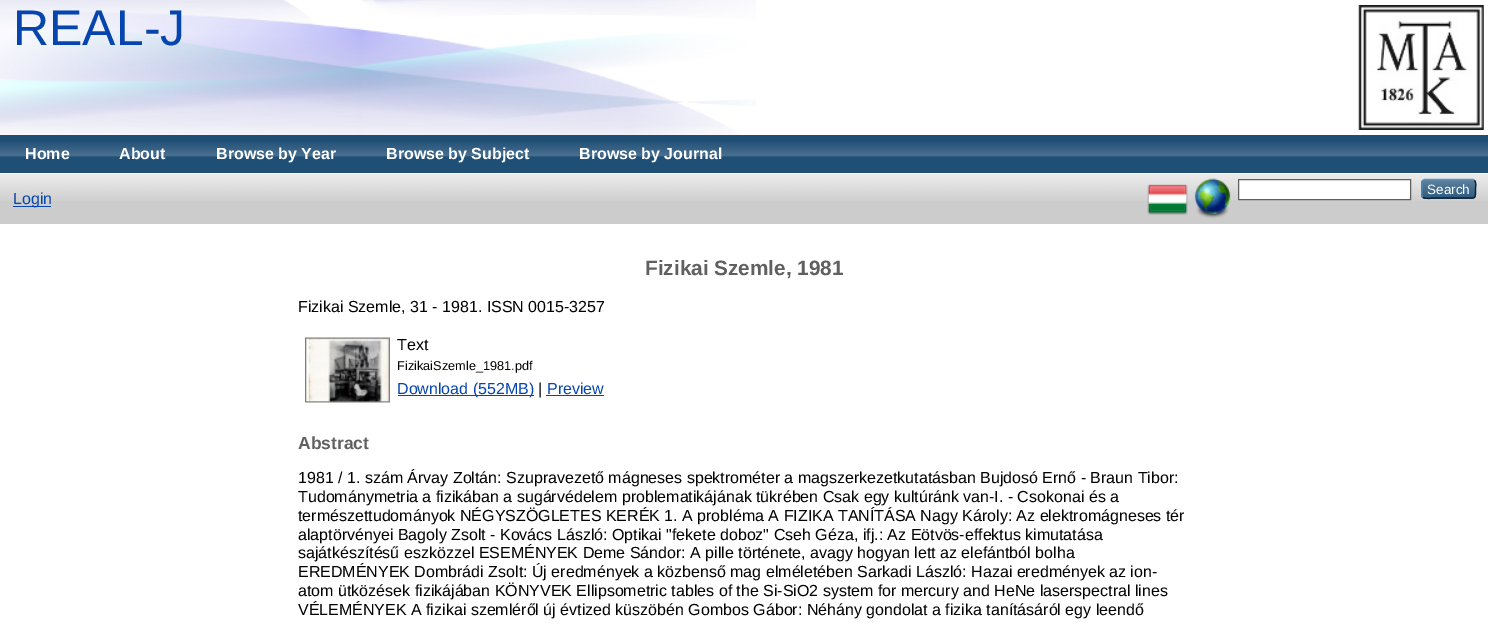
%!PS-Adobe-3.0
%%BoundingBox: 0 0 1488 624
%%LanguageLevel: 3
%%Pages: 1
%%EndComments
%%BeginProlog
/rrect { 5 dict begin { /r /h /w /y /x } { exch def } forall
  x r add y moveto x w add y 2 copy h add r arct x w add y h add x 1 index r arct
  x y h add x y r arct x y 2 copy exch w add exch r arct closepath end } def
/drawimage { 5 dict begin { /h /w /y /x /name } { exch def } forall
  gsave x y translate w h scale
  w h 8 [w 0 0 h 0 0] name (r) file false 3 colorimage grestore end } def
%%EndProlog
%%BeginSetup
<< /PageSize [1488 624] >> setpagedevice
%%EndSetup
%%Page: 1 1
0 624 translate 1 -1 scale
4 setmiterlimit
1 setgray
0 0 1488 624 rectfill
(images/1.raw) 0 0 756 135 drawimage
(images/2.raw) 1358 5 126 125 drawimage
0.125 0.31 0.463 setrgbcolor
0 135 1488 38 rectfill
(images/3.raw) 0 142 1488 15 drawimage
0.8 setgray
0 174 1488 50 rectfill
(images/4.raw) 0 174 1488 27 drawimage
(images/5.raw) 1147 184 41 31 drawimage
(images/6.raw) 1194 178 37 41 drawimage
1 setgray
newpath 1238.5 179.5 moveto 1410.5 179.5 lineto 1410.5 199.5 lineto 1238.5 199.5 lineto closepath gsave fill grestore
0.376 setgray
stroke
0.122 0.31 0.463 setrgbcolor
1421 179 55 20 4 rrect fill
(images/7.raw) 1421 179 55 20 drawimage
0.357 0.592 0.78 setrgbcolor
1.2 setlinewidth
newpath 1423 180.5 moveto 1424.5 179.5 lineto 1473 179.5 lineto 1474.5 180.5 lineto stroke
0.051 0.129 0.192 setrgbcolor
newpath 1474.5 180.5 moveto 1476.5 182.5 1475.5 186.5 1475.5 189 curveto 1475.5 199.5 1476 198 1464.5 198 curveto 1433 198 lineto 1432.5 198 1425 199.5 1423 197 curveto stroke
0.322 0.529 0.702 setrgbcolor
newpath 1423 197 moveto 1421 195.5 1422 191 1422 189 curveto 1422 186.5 1421 182 1423 180.5 curveto stroke
0.024 0.271 0.678 setrgbcolor
13 206 38 1 rectfill
(images/8.raw) 305 337 85 66 drawimage
398 395 136 1 rectfill
546 395 58 1 rectfill
/LiberationSans-Regular [50 0 0 -50 0 0] selectfont
13 45 moveto (REAL-J) show
/LiberationSans-Bold [16 0 0 -16 0 0] selectfont
1 setgray
25 159 moveto (Home) show
119 159 moveto (About) show
216 159 moveto (Browse by Year) show
386 159 moveto (Browse by Subject) show
579 159 moveto (Browse by Journal) show
/LiberationSans-Regular [13.5 0 0 -13.5 0 0] selectfont
1427 194 moveto (Search) show
/LiberationSans-Regular [16 0 0 -16 0 0] selectfont
0.024 0.271 0.678 setrgbcolor
13 204 moveto (Login) show
/LiberationSans-Bold [20.75 0 0 -20.75 0 0] selectfont
0.376 setgray
645 275 moveto (Fizikai Szemle, 1981) show
/LiberationSans-Regular [16 0 0 -16 0 0] selectfont
0 setgray
298 312 moveto (Fizikai Szemle, 31 - 1981. ISSN 0015-3257) show
397 350 moveto (Text) show
/LiberationSans-Regular [12.75 0 0 -12.75 0 0] selectfont
397 370 moveto (FizikaiSzemle_1981.pdf) show
/LiberationSans-Regular [16 0 0 -16 0 0] selectfont
0.024 0.271 0.678 setrgbcolor
397 394 moveto (Download \(552MB\)) show
0 setgray
538 394 moveto (|) show
0.024 0.271 0.678 setrgbcolor
547 394 moveto (Preview) show
/LiberationSans-Bold [17.5 0 0 -17.5 0 0] selectfont
0.376 setgray
298 449 moveto (Abstract) show
/LiberationSans-Regular [16 0 0 -16 0 0] selectfont
0 setgray
298 483 moveto (1981 / 1. szám Árvay Zoltán: Szupravezető mágneses spektrométer a magszerkezetkutatásban Bujdosó Ernő - Braun Tibor:) show
298 502 moveto (Tudománymetria a fizikában a sugárvédelem problematikájának tükrében Csak egy kultúránk van-I. - Csokonai és a) show
298 521 moveto (természettudományok NÉGYSZÖGLETES KERÉK 1. A probléma A FIZIKA TANÍTÁSA Nagy Károly: Az elektromágneses tér) show
298 540 moveto (alaptörvényei Bagoly Zsolt - Kovács László: Optikai "fekete doboz" Cseh Géza, ifj.: Az Eötvös-effektus kimutatása) show
298 558 moveto (sajátkészítésű eszközzel ESEMÉNYEK Deme Sándor: A pille története, avagy hogyan lett az elefántból bolha) show
298 577 moveto (EREDMÉNYEK Dombrádi Zsolt: Új eredmények a közbenső mag elméletében Sarkadi László: Hazai eredmények az ion-) show
298 596 moveto (atom ütközések fizikájában KÖNYVEK Ellipsometric tables of the Si-SiO2 system for mercury and HeNe laserspectral lines) show
298 615 moveto (VÉLEMÉNYEK A fizikai szemléről új évtized küszöbén Gombos Gábor: Néhány gondolat a fizika tanításáról egy leendő) show
showpage
%%EOF
